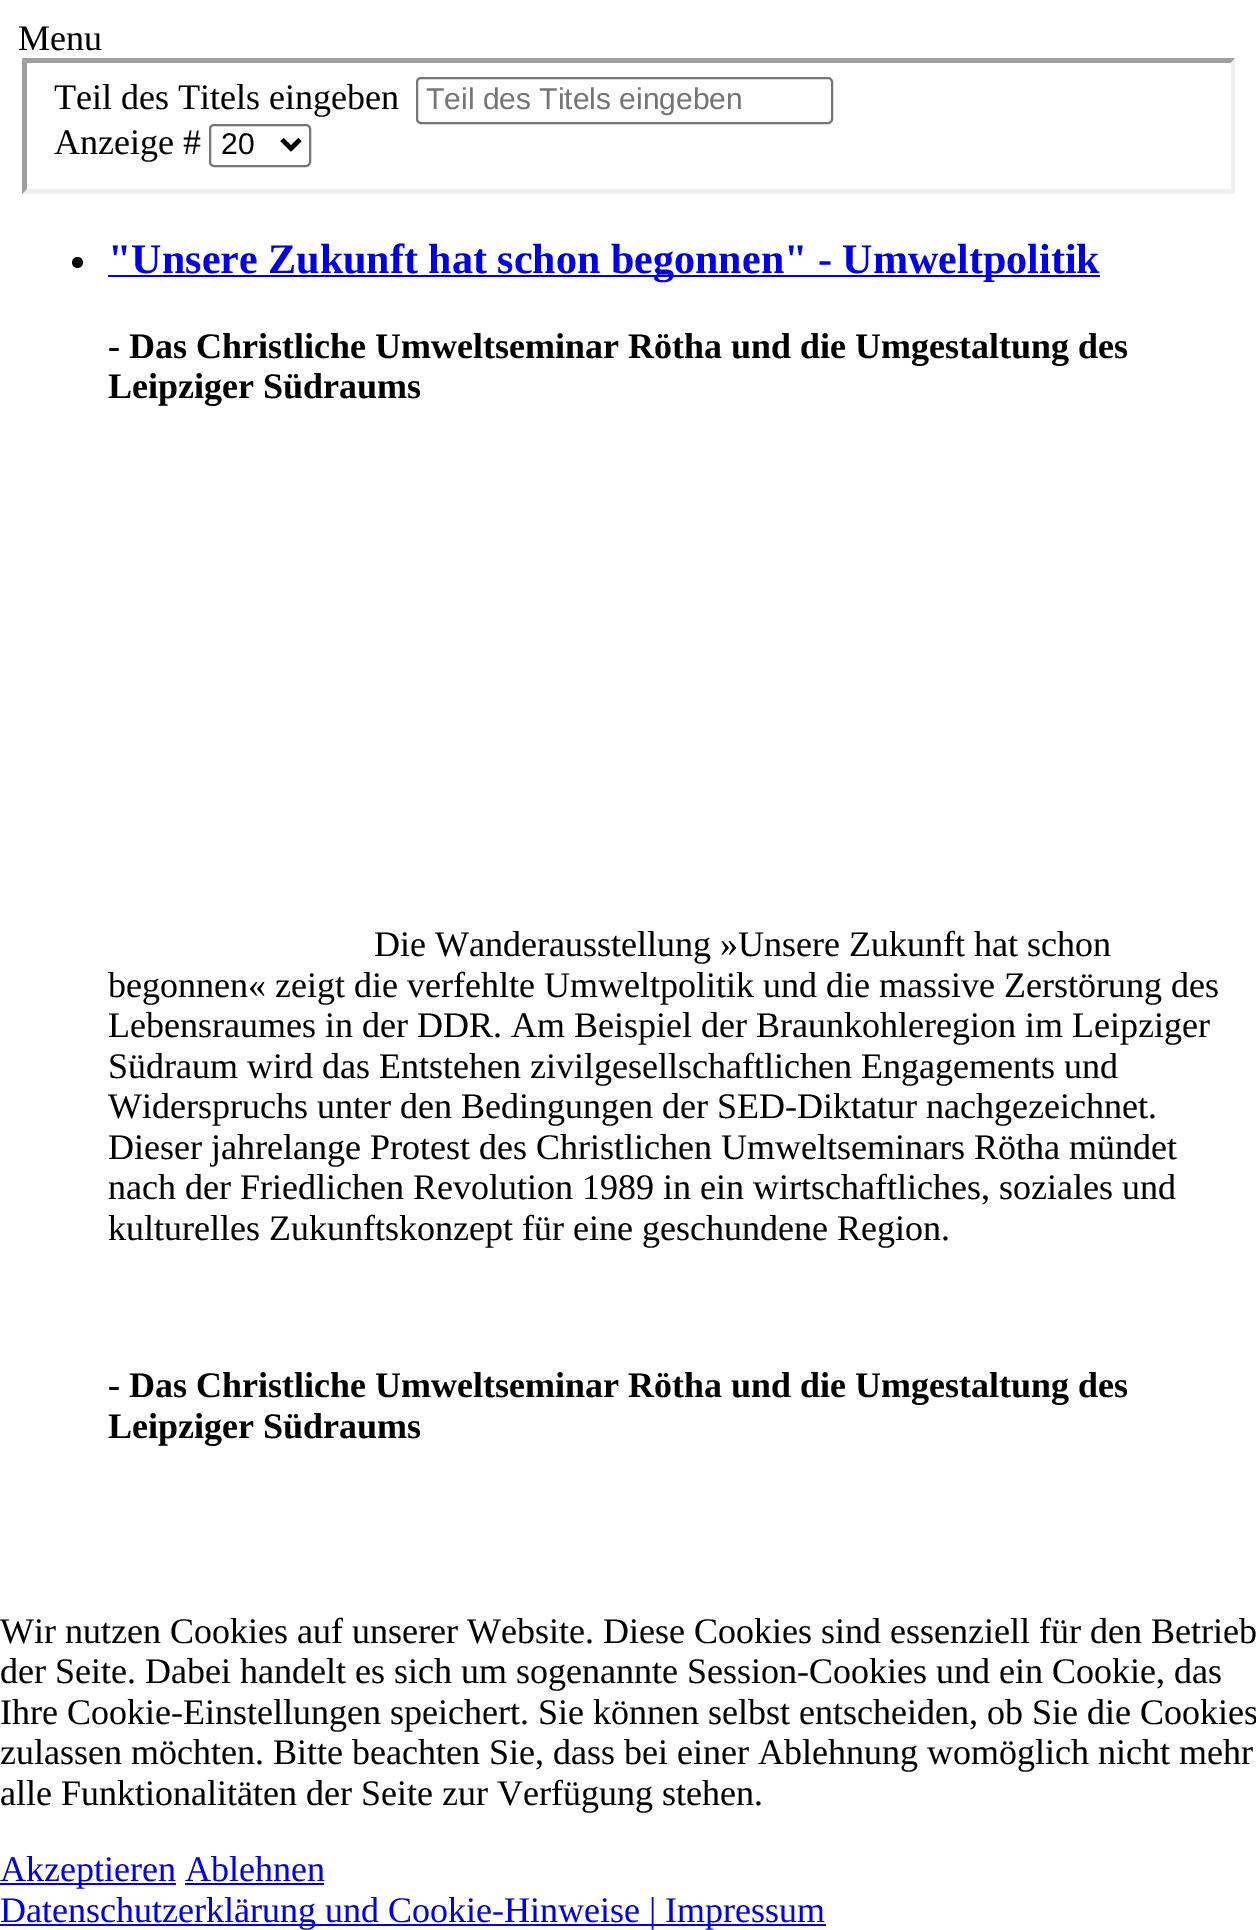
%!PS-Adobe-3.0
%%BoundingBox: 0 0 1256 1930
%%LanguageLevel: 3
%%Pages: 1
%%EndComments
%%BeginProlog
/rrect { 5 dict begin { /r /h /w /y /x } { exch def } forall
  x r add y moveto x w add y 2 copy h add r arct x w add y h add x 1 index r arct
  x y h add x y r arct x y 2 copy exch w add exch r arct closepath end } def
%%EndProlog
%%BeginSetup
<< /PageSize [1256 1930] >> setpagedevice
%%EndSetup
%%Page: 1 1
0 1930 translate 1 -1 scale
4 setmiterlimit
1 setgray
0 0 1256 1930 rectfill
0.624 setgray
newpath 22 58 moveto 1235 58 lineto 1231 63 lineto 27 63 lineto closepath fill
0.937 setgray
newpath 1235 58 moveto 1235 194 lineto 1231 189 lineto 1231 63 lineto closepath fill
newpath 1235 194 moveto 22 194 lineto 27 189 lineto 1231 189 lineto closepath fill
0.624 setgray
newpath 22 194 moveto 22 58 lineto 27 63 lineto 27 189 lineto closepath fill
0.463 setgray
2 setlinewidth
417 78 415 45 4 rrect stroke
210 125 100 41 4 rrect stroke
0 setgray
4.5 setlinewidth
newpath 282 139.5 moveto 291 148.5 lineto 300 139.5 lineto stroke
newpath 77.5 262.5 5.5 0 360 arc closepath fill
0 0 0.933 setrgbcolor
108 275 992 2 rectfill
0 1883 176 2 rectfill
185 1883 139 2 rectfill
0 1924 826 2 rectfill
/LiberationSerif-Regular [36 0 0 -36 0 0] selectfont
0 setgray
18 50 moveto (Menu) show
54 109 moveto (Teil des Titels eingeben) show
/LiberationSans-Regular [30 0 0 -30 0 0] selectfont
0.459 setgray
426 109 moveto (Teil des Titels eingeben) show
/LiberationSerif-Regular [36 0 0 -36 0 0] selectfont
0 setgray
54 154 moveto (Anzeige #) show
/LiberationSans-Regular [30 0 0 -30 0 0] selectfont
221 154 moveto (20) show
/LiberationSerif-Bold [42.1 0 0 -42.1 0 0] selectfont
0 0 0.933 setrgbcolor
108 273 moveto ("Unsere Zukunft hat schon begonnen" - Umweltpolitik) show
/LiberationSerif-Bold [36 0 0 -36 0 0] selectfont
0 setgray
108 358 moveto (- Das Christliche Umweltseminar Rötha und die Umgestaltung des) show
108 398 moveto (Leipziger Südraums) show
/LiberationSerif-Regular [36 0 0 -36 0 0] selectfont
374 956 moveto (Die Wanderausstellung »Unsere Zukunft hat schon) show
108 997 moveto (begonnen« zeigt die verfehlte Umweltpolitik und die massive Zerstörung des) show
108 1037 moveto (Lebensraumes in der DDR. Am Beispiel der Braunkohleregion im Leipziger) show
108 1078 moveto (Südraum wird das Entstehen zivilgesellschaftlichen Engagements und) show
108 1118 moveto (Widerspruchs unter den Bedingungen der SED-Diktatur nachgezeichnet.) show
108 1159 moveto (Dieser jahrelange Protest des Christlichen Umweltseminars Rötha mündet) show
108 1199 moveto (nach der Friedlichen Revolution 1989 in ein wirtschaftliches, soziales und) show
108 1240 moveto (kulturelles Zukunftskonzept für eine geschundene Region.) show
/LiberationSerif-Bold [36 0 0 -36 0 0] selectfont
108 1397 moveto (- Das Christliche Umweltseminar Rötha und die Umgestaltung des) show
108 1438 moveto (Leipziger Südraums) show
/LiberationSerif-Regular [36 0 0 -36 0 0] selectfont
0 1643 moveto (Wir nutzen Cookies auf unserer Website. Diese Cookies sind essenziell für den Betrieb) show
0 1683 moveto (der Seite. Dabei handelt es sich um sogenannte Session-Cookies und ein Cookie, das) show
0 1724 moveto (Ihre Cookie-Einstellungen speichert. Sie können selbst entscheiden, ob Sie die Cookies) show
0 1764 moveto (zulassen möchten. Bitte beachten Sie, dass bei einer Ablehnung womöglich nicht mehr) show
0 1805 moveto (alle Funktionalitäten der Seite zur Verfügung stehen.) show
0 0 0.933 setrgbcolor
0 1881 moveto (Akzeptieren Ablehnen) show
0 1922 moveto (Datenschutzerklärung und Cookie-Hinweise | Impressum) show
showpage
%%EOF
